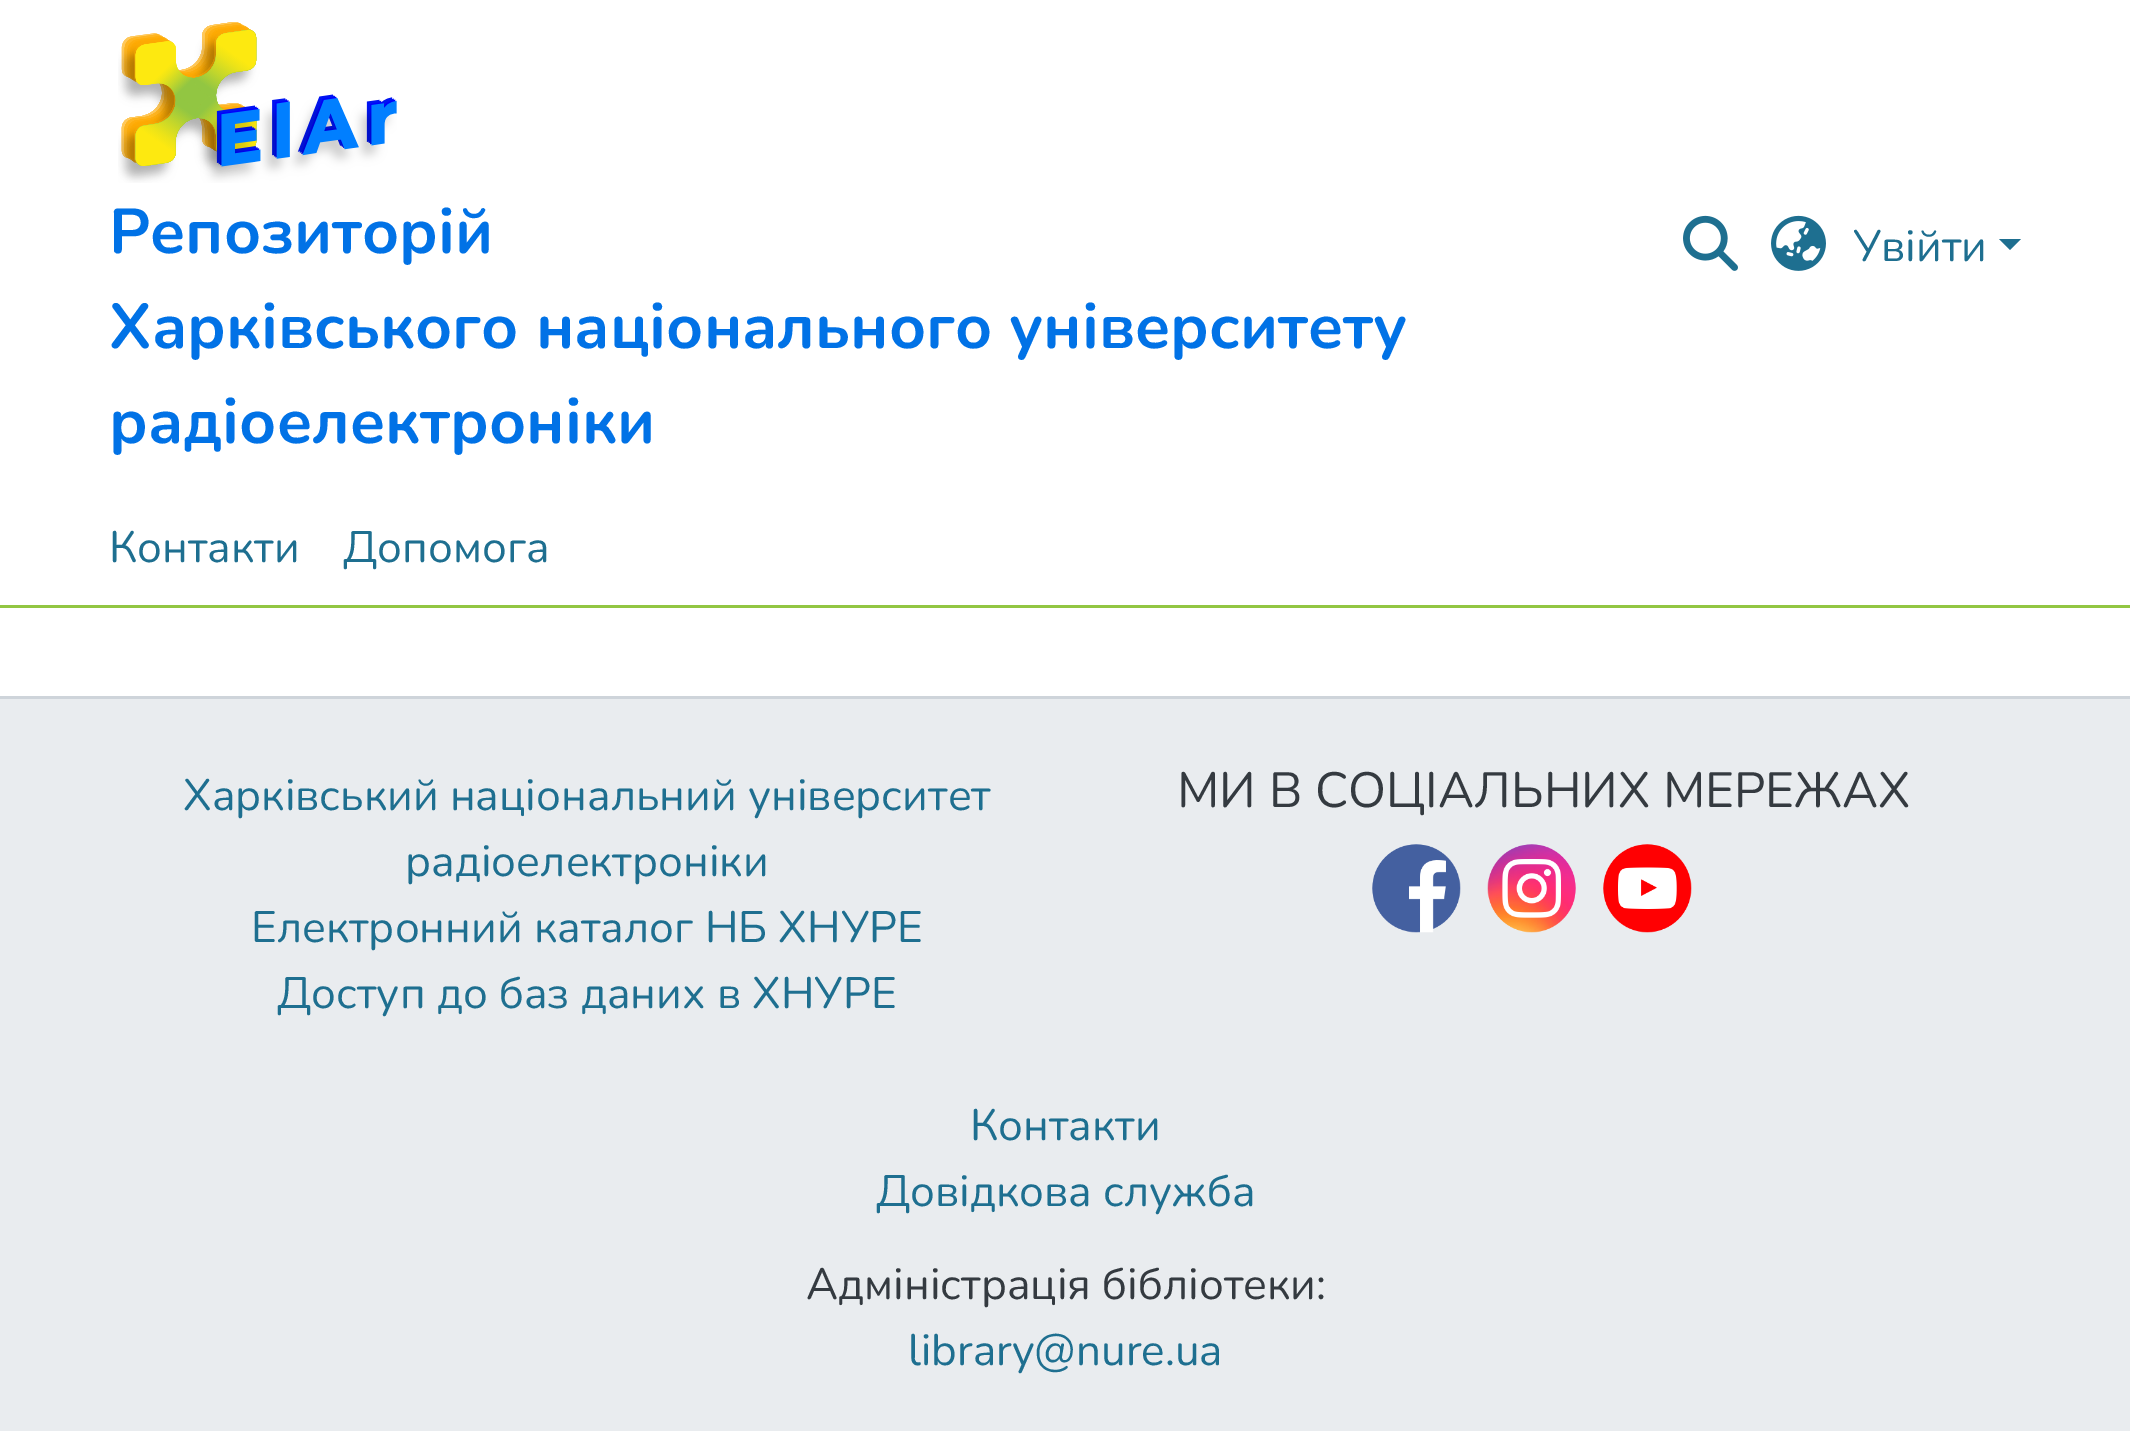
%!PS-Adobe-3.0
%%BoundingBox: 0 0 2130 1431
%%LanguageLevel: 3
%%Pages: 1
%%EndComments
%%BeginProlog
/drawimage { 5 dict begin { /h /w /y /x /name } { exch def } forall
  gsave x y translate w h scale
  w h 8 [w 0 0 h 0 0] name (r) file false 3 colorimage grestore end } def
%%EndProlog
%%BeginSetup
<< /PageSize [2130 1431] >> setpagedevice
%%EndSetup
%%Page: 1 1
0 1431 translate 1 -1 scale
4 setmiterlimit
1 setgray
0 0 2130 1431 rectfill
0.573 0.776 0.259 setrgbcolor
0 605 2130 3 rectfill
(images/1.raw) 118 22 279 161 drawimage
(images/2.raw) 1683 215 55 56 drawimage
(images/3.raw) 1771 215 55 56 drawimage
0.118 0.435 0.565 setrgbcolor
newpath 1999 239 moveto 2021 239 lineto 2010 250 lineto closepath fill
0.808 0.831 0.855 setrgbcolor
0 696 2130 3 rectfill
0.914 0.925 0.937 setrgbcolor
0 699 2130 732 rectfill
(images/4.raw) 1372 844 89 89 drawimage
(images/5.raw) 1487 844 89 89 drawimage
(images/6.raw) 1603 844 89 89 drawimage
/Nunito-Bold [63.25 0 0 -63.25 0 0] selectfont
0.004 0.447 0.902 setrgbcolor
109 253 moveto (Репозиторій) show
109 348 moveto (Харківського національного університету) show
109 443 moveto (радіоелектроніки) show
/Nunito-Regular [44 0 0 -44 0 0] selectfont
0.118 0.435 0.565 setrgbcolor
1853 261 moveto (Увійти) show
109 562 moveto (Контакти) show
343 562 moveto (Допомога) show
183 810 moveto (Харківський національний університет) show
405 876 moveto (радіоелектроніки) show
251 942 moveto (Електронний каталог НБ ХНУРЕ) show
277 1008 moveto (Доступ до баз даних в ХНУРЕ) show
/Nunito-Regular [49.5 0 0 -49.5 0 0] selectfont
0.204 0.227 0.251 setrgbcolor
1177 807 moveto (МИ В СОЦІАЛЬНИХ МЕРЕЖАХ) show
/Nunito-Regular [44 0 0 -44 0 0] selectfont
0.118 0.435 0.565 setrgbcolor
970 1140 moveto (Контакти) show
876 1206 moveto (Довідкова служба) show
0.204 0.227 0.251 setrgbcolor
806 1299 moveto (Адміністрація бібліотеки:) show
0.118 0.435 0.565 setrgbcolor
908 1365 moveto (library@nure.ua) show
showpage
%%EOF
